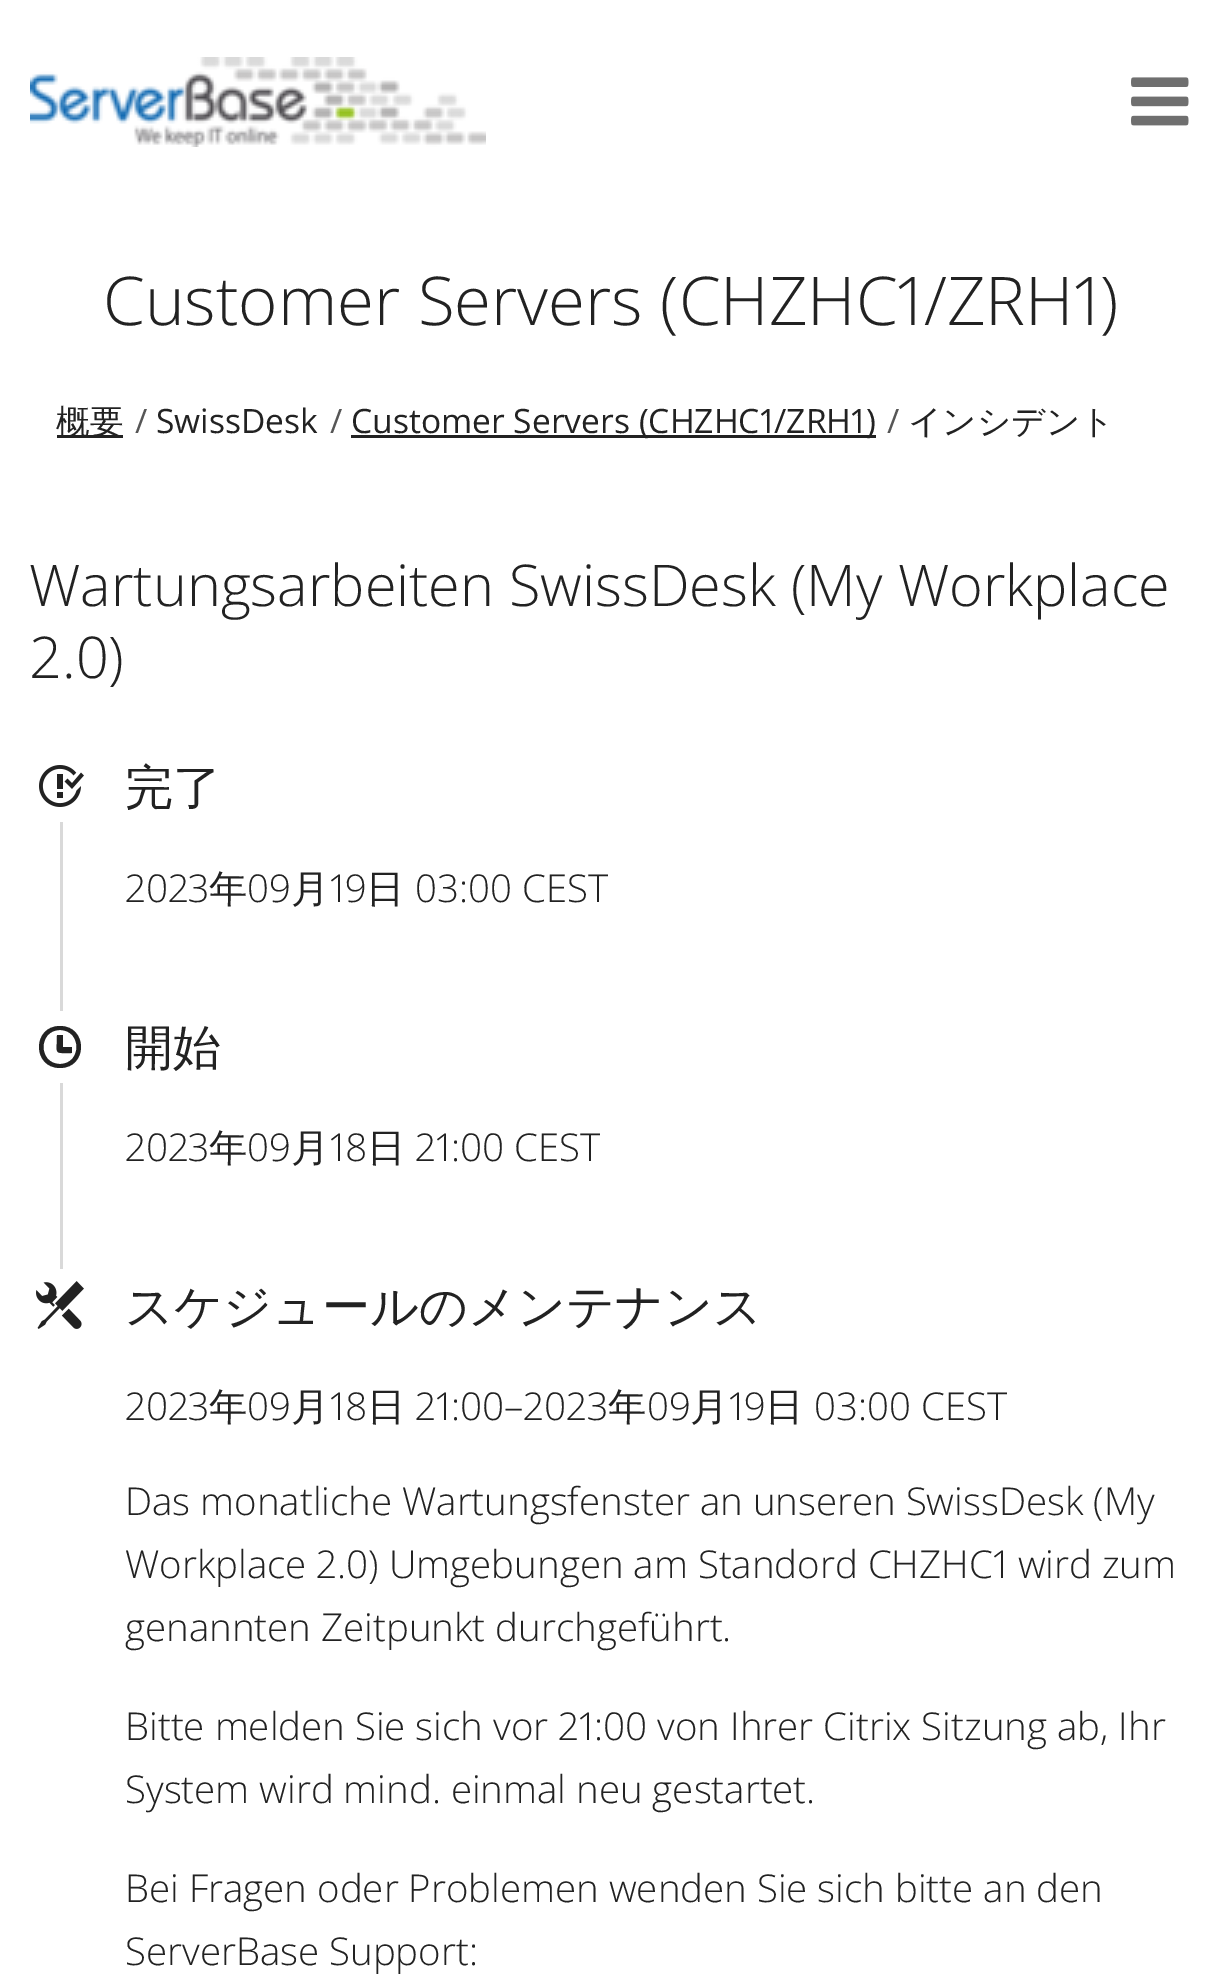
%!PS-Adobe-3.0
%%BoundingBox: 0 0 1221 1976
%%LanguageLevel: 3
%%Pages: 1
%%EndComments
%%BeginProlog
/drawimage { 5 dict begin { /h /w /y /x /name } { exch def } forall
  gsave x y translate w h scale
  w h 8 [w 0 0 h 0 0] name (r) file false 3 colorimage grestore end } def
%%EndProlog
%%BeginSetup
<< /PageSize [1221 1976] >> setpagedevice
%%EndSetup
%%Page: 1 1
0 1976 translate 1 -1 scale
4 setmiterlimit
1 setgray
0 0 1221 1976 rectfill
(images/1.raw) 30 57 456 90 drawimage
(images/2.raw) 1131 77 58 49 drawimage
0.133 setgray
57 435 66 3 rectfill
351 435 525 3 rectfill
0.851 setgray
60 822 3 447 rectfill
(images/3.raw) 39 765 45 42 drawimage
1 setgray
60 1011 3 72 rectfill
0.133 setgray
newpath 63 1047 moveto 72 1047 lineto 72 1053 lineto 53 1053 57 1055 57 1035 curveto 63 1035 lineto closepath 60 1030 moveto 82 1030 82 1064 60 1064 curveto 38 1064 38 1030 60 1030 curveto closepath 60 1026 moveto 32 1026 32 1068 60 1068 curveto 88 1068 88 1026 60 1026 curveto closepath fill
(images/4.raw) 36 1281 48 48 drawimage
/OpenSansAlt-Light [67.25 0 0 -67.25 0 0] selectfont
103 325 moveto (Customer Servers \(CHZHC1/ZRH1\)) show
/WenQuanYiZenHei-Medium [33.6 0 0 -33.6 0 0] selectfont
56 433 moveto (概要) show
/OpenSans-Regular [33.6 0 0 -33.6 0 0] selectfont
0.337 setgray
135 433 moveto (/) show
0.133 setgray
156 433 moveto (SwissDesk) show
0.337 setgray
330 433 moveto (/) show
/OpenSansAlt-Regular [33.6 0 0 -33.6 0 0] selectfont
0.133 setgray
351 433 moveto (Customer Servers \(CHZHC1/ZRH1\)) show
/OpenSans-Regular [33.6 0 0 -33.6 0 0] selectfont
0.337 setgray
887 433 moveto (/) show
/WenQuanYiZenHei-Medium [33.6 0 0 -33.6 0 0] selectfont
0.133 setgray
908 433 moveto (インシデント) show
/OpenSans-Light [57.6 0 0 -57.6 0 0] selectfont
29 606 moveto (Wartungsarbeiten SwissDesk \(My Workplace) show
29 678 moveto (2.0\)) show
/WenQuanYiZenHei-Medium [48 0 0 -48 0 0] selectfont
125 804 moveto (完了) show
/OpenSansAlt-Light [38.4 0 0 -38.4 0 0] selectfont
125 902 moveto (2023) show
/WenQuanYiZenHei-Medium [38.4 0 0 -38.4 0 0] selectfont
209 902 moveto (年) show
/OpenSans-Light [38.4 0 0 -38.4 0 0] selectfont
247 902 moveto (09) show
/WenQuanYiZenHei-Medium [38.4 0 0 -38.4 0 0] selectfont
291 902 moveto (月) show
/OpenSansAlt-Light [38.4 0 0 -38.4 0 0] selectfont
330 902 moveto (19) show
/WenQuanYiZenHei-Medium [38.4 0 0 -38.4 0 0] selectfont
366 902 moveto (日) show
/OpenSans-Light [38.4 0 0 -38.4 0 0] selectfont
415 902 moveto (03:00 CEST) show
/WenQuanYiZenHei-Medium [48 0 0 -48 0 0] selectfont
125 1064 moveto (開始) show
/OpenSansAlt-Light [38.4 0 0 -38.4 0 0] selectfont
125 1161 moveto (2023) show
/WenQuanYiZenHei-Medium [38.4 0 0 -38.4 0 0] selectfont
209 1161 moveto (年) show
/OpenSans-Light [38.4 0 0 -38.4 0 0] selectfont
247 1161 moveto (09) show
/WenQuanYiZenHei-Medium [38.4 0 0 -38.4 0 0] selectfont
291 1161 moveto (月) show
/OpenSansAlt-Light [38.4 0 0 -38.4 0 0] selectfont
330 1161 moveto (18) show
/WenQuanYiZenHei-Medium [38.4 0 0 -38.4 0 0] selectfont
367 1161 moveto (日) show
/OpenSansAlt-Light [38.4 0 0 -38.4 0 0] selectfont
415 1161 moveto (21:00 CEST) show
/WenQuanYiZenHei-Medium [48 0 0 -48 0 0] selectfont
125 1323 moveto (スケジュールのメンテナンス) show
/OpenSansAlt-Light [38.4 0 0 -38.4 0 0] selectfont
125 1420 moveto (2023) show
/WenQuanYiZenHei-Medium [38.4 0 0 -38.4 0 0] selectfont
209 1420 moveto (年) show
/OpenSans-Light [38.4 0 0 -38.4 0 0] selectfont
247 1420 moveto (09) show
/WenQuanYiZenHei-Medium [38.4 0 0 -38.4 0 0] selectfont
291 1420 moveto (月) show
/OpenSansAlt-Light [38.4 0 0 -38.4 0 0] selectfont
330 1420 moveto (18) show
/WenQuanYiZenHei-Medium [38.4 0 0 -38.4 0 0] selectfont
367 1420 moveto (日) show
/OpenSansAlt-Light [38.4 0 0 -38.4 0 0] selectfont
415 1420 moveto (21:00–2023) show
/WenQuanYiZenHei-Medium [38.4 0 0 -38.4 0 0] selectfont
608 1420 moveto (年) show
/OpenSans-Light [38.4 0 0 -38.4 0 0] selectfont
647 1420 moveto (09) show
/WenQuanYiZenHei-Medium [38.4 0 0 -38.4 0 0] selectfont
690 1420 moveto (月) show
/OpenSansAlt-Light [38.4 0 0 -38.4 0 0] selectfont
729 1420 moveto (19) show
/WenQuanYiZenHei-Medium [38.4 0 0 -38.4 0 0] selectfont
765 1420 moveto (日) show
/OpenSans-Light [38.4 0 0 -38.4 0 0] selectfont
814 1420 moveto (03:00 CEST) show
125 1515 moveto (Das monatliche Wartungsfenster an unseren SwissDesk \(My) show
/OpenSansAlt-Light [38.4 0 0 -38.4 0 0] selectfont
125 1578 moveto (Workplace 2.0\) Umgebungen am Standord CHZHC1 wird zum) show
/OpenSans-Light [38.4 0 0 -38.4 0 0] selectfont
125 1641 moveto (genannten Zeitpunkt durchgeführt.) show
/OpenSansAlt-Light [38.4 0 0 -38.4 0 0] selectfont
125 1740 moveto (Bitte melden Sie sich vor 21:00 von Ihrer Citrix Sitzung ab, Ihr) show
/OpenSans-Light [38.4 0 0 -38.4 0 0] selectfont
125 1803 moveto (System wird mind. einmal neu gestartet.) show
125 1902 moveto (Bei Fragen oder Problemen wenden Sie sich bitte an den) show
125 1965 moveto (ServerBase Support:) show
showpage
%%EOF
